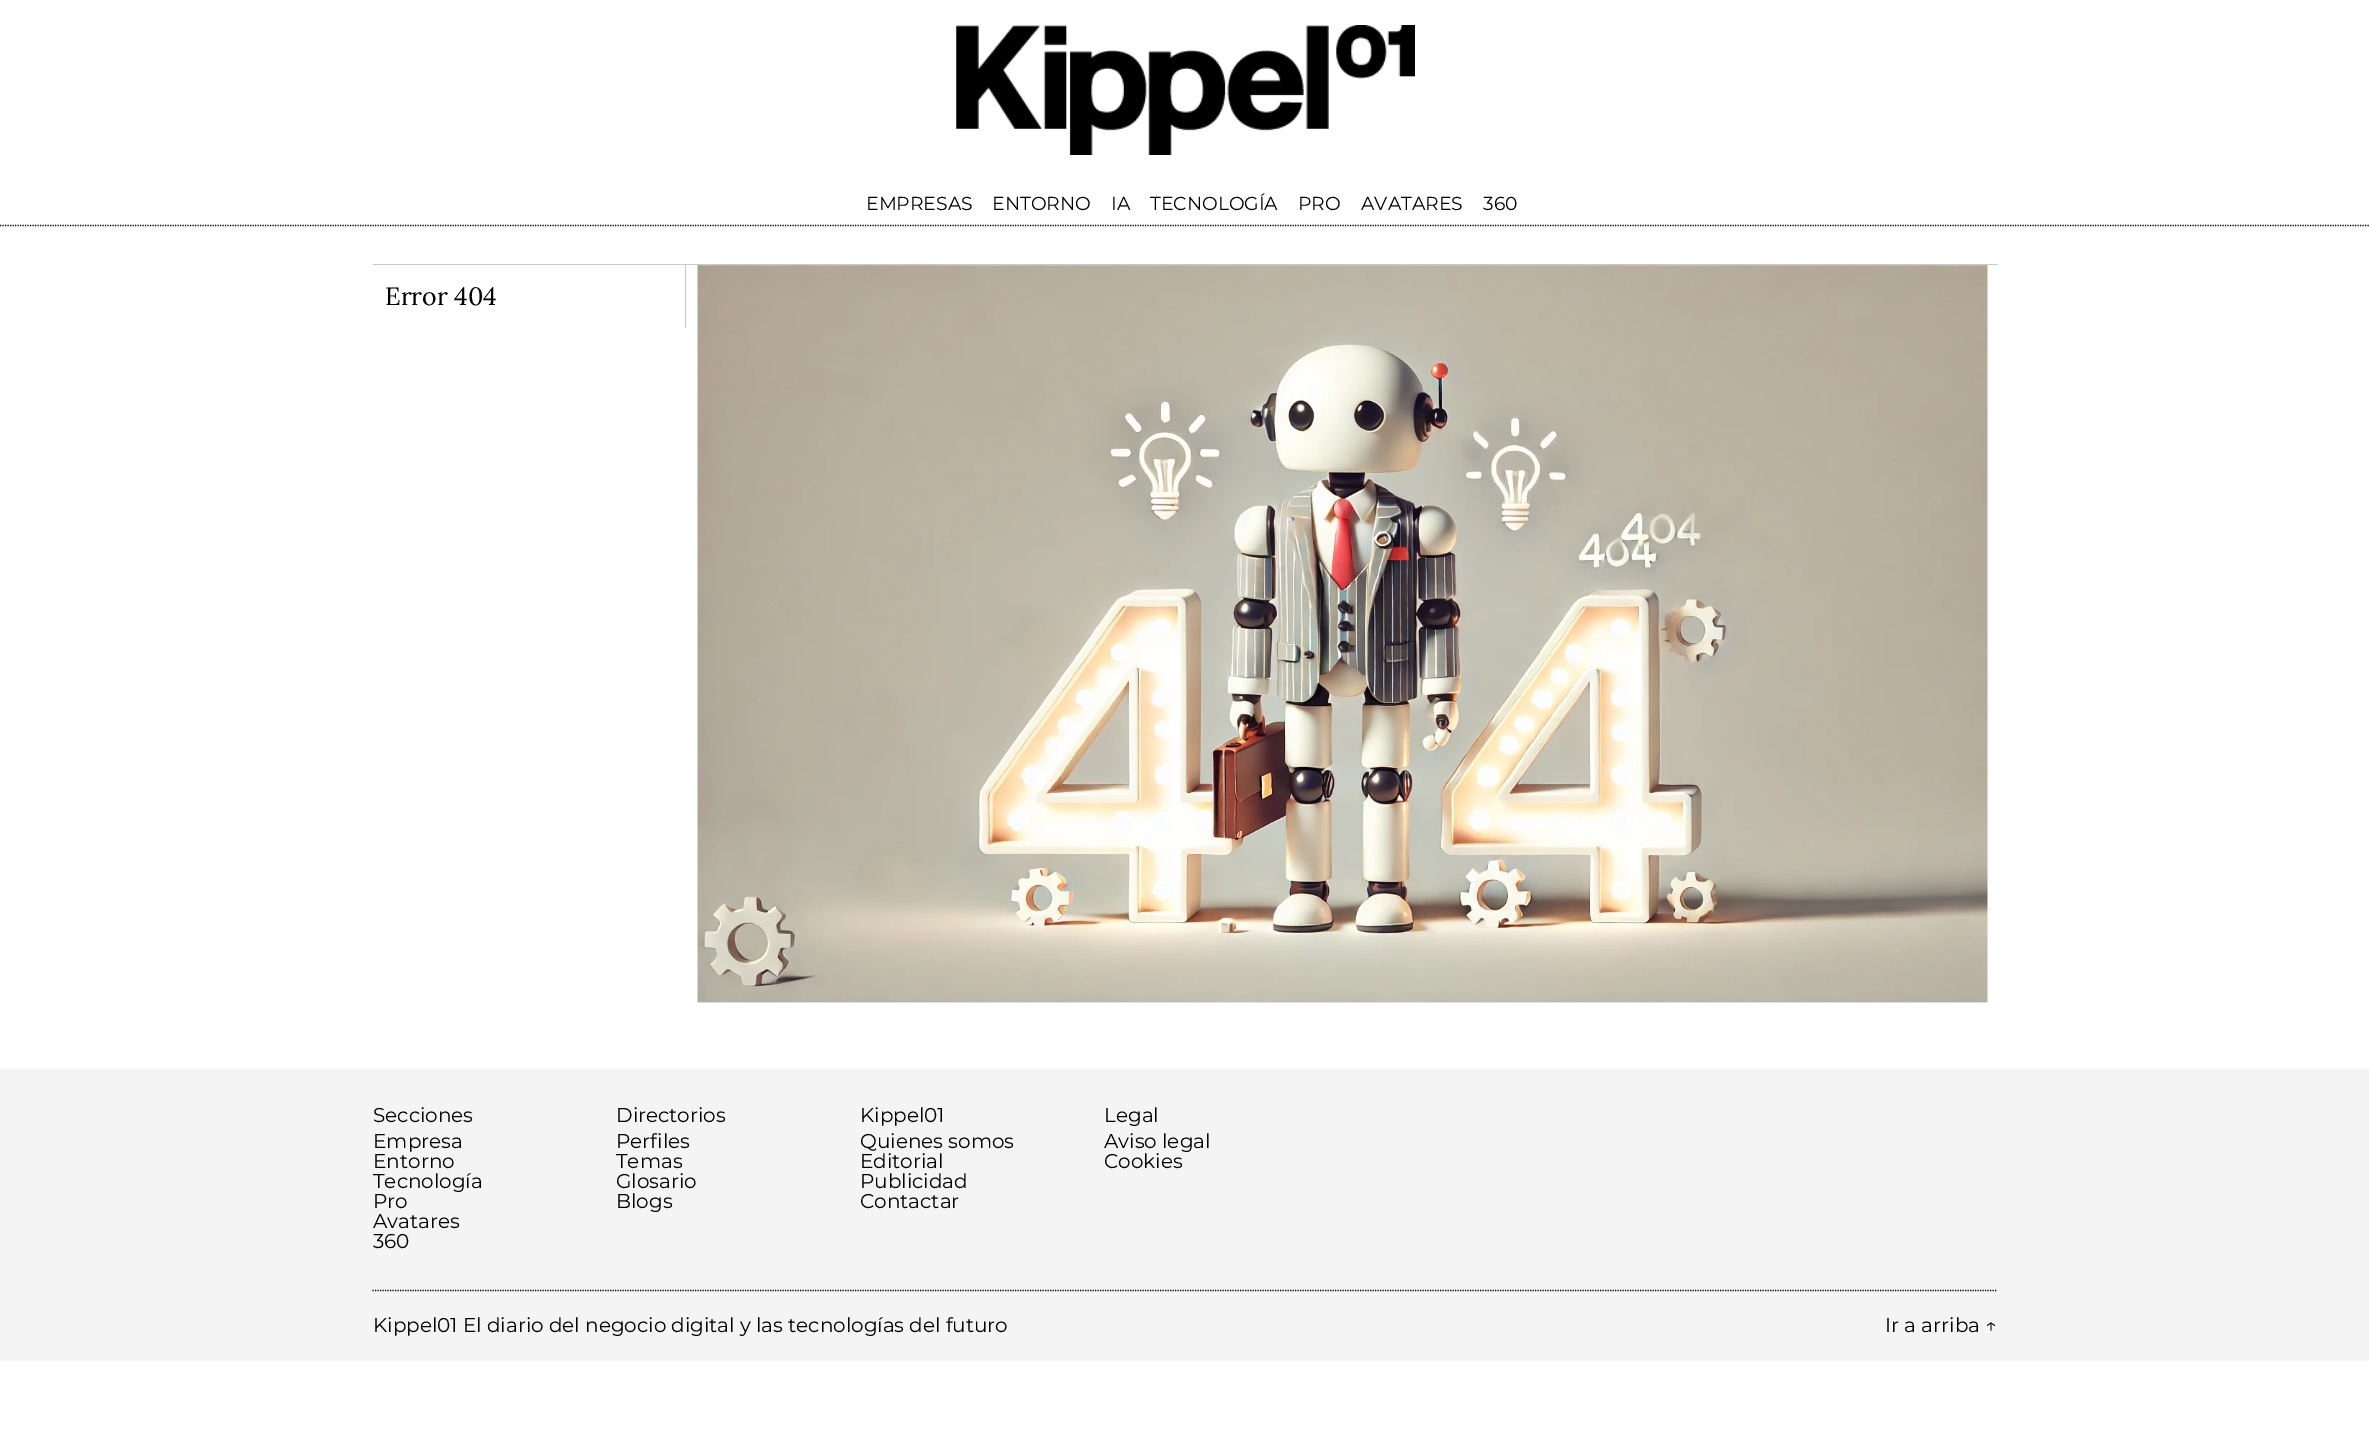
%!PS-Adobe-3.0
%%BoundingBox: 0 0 2369 1452
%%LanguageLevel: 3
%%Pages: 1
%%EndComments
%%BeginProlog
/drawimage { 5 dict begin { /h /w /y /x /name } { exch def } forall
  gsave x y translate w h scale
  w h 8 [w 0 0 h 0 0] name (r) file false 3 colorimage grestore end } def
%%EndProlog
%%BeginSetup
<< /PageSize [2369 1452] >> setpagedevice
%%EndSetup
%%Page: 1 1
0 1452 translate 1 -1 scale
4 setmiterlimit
1 setgray
0 0 2369 1452 rectfill
(images/1.raw) 956 25 459 130 drawimage
0 setgray
1.2 setlinewidth
[1.25 1.25] 0 setdash
newpath 0 225.5 moveto 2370 225.5 lineto stroke
0.784 setgray
373 264 1625 1 rectfill
685 265 1 63 rectfill
(images/2.raw) 697 265 1291 738 drawimage
0.957 setgray
0 1069 2369 292 rectfill
0 setgray
newpath 372.5 1290.5 moveto 1997.5 1290.5 lineto stroke
/Montserrat-Thin [18.75 0 0 -18.75 0 0] selectfont
866 210 moveto (EMPRESAS) show
992 210 moveto (ENTORNO) show
1111 210 moveto (IA) show
1150 210 moveto (TECNOLOGÍA) show
1298 210 moveto (PRO) show
1361 210 moveto (AVATARES) show
1483 210 moveto (360) show
/Lora-Regular [25 0 0 -25 0 0] selectfont
385 305 moveto (Error 404) show
/Montserrat-Thin [20 0 0 -20 0 0] selectfont
373 1122 moveto (Secciones) show
373 1148 moveto (Empresa) show
373 1168 moveto (Entorno) show
373 1188 moveto (Tecnología) show
373 1208 moveto (Pro) show
373 1228 moveto (Avatares) show
373 1248 moveto (360) show
616 1122 moveto (Directorios) show
616 1148 moveto (Perfiles) show
616 1168 moveto (Temas) show
616 1188 moveto (Glosario) show
616 1208 moveto (Blogs) show
860 1122 moveto (Kippel01) show
860 1148 moveto (Quienes somos) show
860 1168 moveto (Editorial) show
860 1188 moveto (Publicidad) show
860 1208 moveto (Contactar) show
1104 1122 moveto (Legal) show
1104 1148 moveto (Aviso legal) show
1104 1168 moveto (Cookies) show
373 1332 moveto (Kippel01 El diario del negocio digital y las tecnologías del futuro) show
1885 1332 moveto (Ir a arriba ↑) show
showpage
%%EOF
